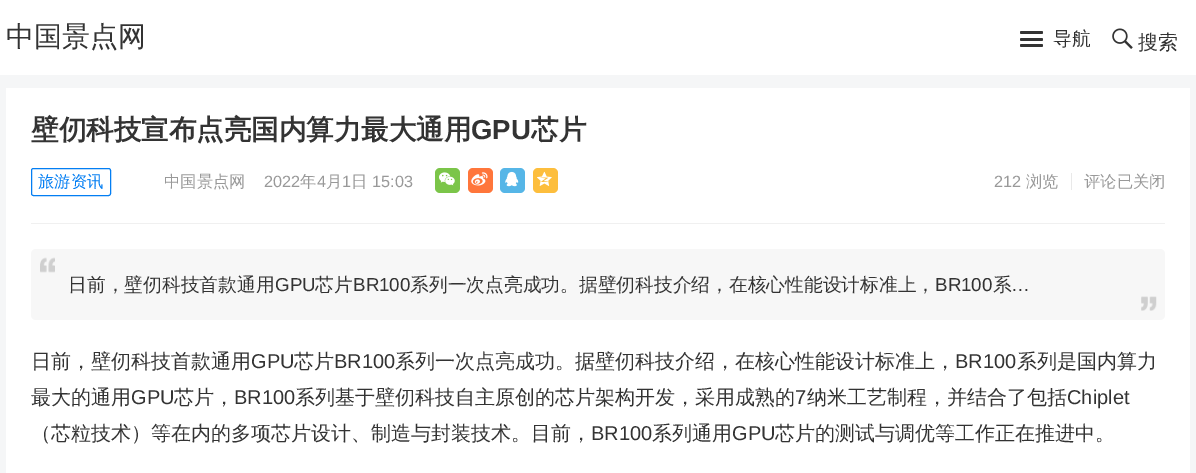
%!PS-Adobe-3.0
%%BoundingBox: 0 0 1196 473
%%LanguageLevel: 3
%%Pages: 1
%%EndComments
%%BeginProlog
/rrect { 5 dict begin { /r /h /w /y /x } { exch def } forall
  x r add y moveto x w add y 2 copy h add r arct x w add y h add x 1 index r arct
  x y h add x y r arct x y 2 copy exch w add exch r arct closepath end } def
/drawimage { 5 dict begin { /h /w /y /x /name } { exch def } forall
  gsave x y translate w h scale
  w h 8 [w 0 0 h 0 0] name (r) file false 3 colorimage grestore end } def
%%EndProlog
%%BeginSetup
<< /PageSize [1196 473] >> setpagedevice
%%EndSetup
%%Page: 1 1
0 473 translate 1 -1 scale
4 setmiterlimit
0.961 0.965 0.969 setrgbcolor
0 0 1196 473 rectfill
1 setgray
0 0 1196 75 rectfill
0.2 setgray
1020 31 23 3 1.5 rrect fill
1020 38 23 3 1.5 rrect fill
1020 44 23 3 1.5 rrect fill
(images/1.raw) 1112 28 21 21 drawimage
1 setgray
6 88 1184 385 rectfill
0.941 setgray
31 223 1134 1 rectfill
0.012 0.494 0.953 setrgbcolor
31.5 168.5 79 27 2 rrect stroke
0.482 0.773 0.286 setrgbcolor
435 168 25 25 5 rrect fill
(images/2.raw) 439 172 16 14 drawimage
1 0.463 0.231 setrgbcolor
468 168 25 25 5 rrect fill
(images/3.raw) 471 172 17 14 drawimage
0.337 0.714 0.906 setrgbcolor
500 168 25 25 5 rrect fill
(images/4.raw) 505 171 14 16 drawimage
0.992 0.745 0.239 setrgbcolor
533 168 25 25 5 rrect fill
(images/5.raw) 537 171 15 15 drawimage
0.914 setgray
1071 173 1 17 rectfill
0.969 setgray
31 249 1134 71 5 rrect fill
(images/6.raw) 40 257 15 16 drawimage
(images/7.raw) 1141 296 16 15 drawimage
/WenQuanYiZenHei-Medium [28 0 0 -28 0 0] selectfont
0.2 setgray
6 46 moveto (中国景点网) show
/WenQuanYiZenHei-Medium [18.75 0 0 -18.75 0 0] selectfont
1053 45 moveto (导航) show
/WenQuanYiZenHei-Medium [20 0 0 -20 0 0] selectfont
1138 49 moveto (搜索) show
/WenQuanYiZenHei-Bold [27.5 0 0 -27.5 0 0] selectfont
31 139 moveto (壁仞科技宣布点亮国内算力最大通用) show
/LiberationSans-Bold [27.5 0 0 -27.5 0 0] selectfont
471 139 moveto (GPU) show
/WenQuanYiZenHei-Bold [27.5 0 0 -27.5 0 0] selectfont
531 139 moveto (芯片) show
/WenQuanYiZenHei-Medium [16.25 0 0 -16.25 0 0] selectfont
0.012 0.494 0.953 setrgbcolor
38 187 moveto (旅游资讯) show
0.6 setgray
164 187 moveto (中国景点网) show
/LiberationSans-Regular [16.25 0 0 -16.25 0 0] selectfont
264 187 moveto (2022) show
/WenQuanYiZenHei-Medium [16.25 0 0 -16.25 0 0] selectfont
300 187 moveto (年) show
/LiberationSans-Regular [16.25 0 0 -16.25 0 0] selectfont
317 187 moveto (4) show
/WenQuanYiZenHei-Medium [16.25 0 0 -16.25 0 0] selectfont
326 187 moveto (月) show
/LiberationSans-Regular [16.25 0 0 -16.25 0 0] selectfont
342 187 moveto (1) show
/WenQuanYiZenHei-Medium [16.25 0 0 -16.25 0 0] selectfont
351 187 moveto (日) show
/LiberationSans-Regular [16.25 0 0 -16.25 0 0] selectfont
372 187 moveto (15:03) show
994 187 moveto (212) show
/WenQuanYiZenHei-Medium [16.25 0 0 -16.25 0 0] selectfont
1026 187 moveto (浏览) show
1084 187 moveto (评论已关闭) show
/WenQuanYiZenHei-Medium [18.75 0 0 -18.75 0 0] selectfont
0.2 setgray
68 291 moveto (日前，壁仞科技首款通用) show
/LiberationSans-Regular [18.75 0 0 -18.75 0 0] selectfont
275 291 moveto (GPU) show
/WenQuanYiZenHei-Medium [18.75 0 0 -18.75 0 0] selectfont
315 291 moveto (芯片) show
/LiberationSans-Regular [18.75 0 0 -18.75 0 0] selectfont
353 291 moveto (BR100) show
/WenQuanYiZenHei-Medium [18.75 0 0 -18.75 0 0] selectfont
410 291 moveto (系列一次点亮成功。据壁仞科技介绍，在核心性能设计标准上，) show
/LiberationSans-Regular [18.75 0 0 -18.75 0 0] selectfont
935 291 moveto (BR100) show
/WenQuanYiZenHei-Medium [18.75 0 0 -18.75 0 0] selectfont
993 291 moveto (系) show
/LiberationSans-Regular [18.75 0 0 -18.75 0 0] selectfont
1011 291 moveto (…) show
/WenQuanYiZenHei-Medium [20 0 0 -20 0 0] selectfont
31 368 moveto (日前，壁仞科技首款通用) show
/LiberationSans-Regular [20 0 0 -20 0 0] selectfont
251 368 moveto (GPU) show
/WenQuanYiZenHei-Medium [20 0 0 -20 0 0] selectfont
294 368 moveto (芯片) show
/LiberationSans-Regular [20 0 0 -20 0 0] selectfont
334 368 moveto (BR100) show
/WenQuanYiZenHei-Medium [20 0 0 -20 0 0] selectfont
395 368 moveto (系列一次点亮成功。据壁仞科技介绍，在核心性能设计标准上，) show
/LiberationSans-Regular [20 0 0 -20 0 0] selectfont
955 368 moveto (BR100) show
/WenQuanYiZenHei-Medium [20 0 0 -20 0 0] selectfont
1017 368 moveto (系列是国内算力) show
31 404 moveto (最大的通用) show
/LiberationSans-Regular [20 0 0 -20 0 0] selectfont
131 404 moveto (GPU) show
/WenQuanYiZenHei-Medium [20 0 0 -20 0 0] selectfont
174 404 moveto (芯片，) show
/LiberationSans-Regular [20 0 0 -20 0 0] selectfont
234 404 moveto (BR100) show
/WenQuanYiZenHei-Medium [20 0 0 -20 0 0] selectfont
295 404 moveto (系列基于壁仞科技自主原创的芯片架构开发，采用成熟的) show
/LiberationSans-Regular [20 0 0 -20 0 0] selectfont
795 404 moveto (7) show
/WenQuanYiZenHei-Medium [20 0 0 -20 0 0] selectfont
807 404 moveto (纳米工艺制程，并结合了包括) show
/LiberationSans-Regular [20 0 0 -20 0 0] selectfont
1067 404 moveto (Chiplet) show
/WenQuanYiZenHei-Medium [20 0 0 -20 0 0] selectfont
31 440 moveto (（芯粒技术）等在内的多项芯片设计、制造与封装技术。目前，) show
/LiberationSans-Regular [20 0 0 -20 0 0] selectfont
591 440 moveto (BR100) show
/WenQuanYiZenHei-Medium [20 0 0 -20 0 0] selectfont
652 440 moveto (系列通用) show
/LiberationSans-Regular [20 0 0 -20 0 0] selectfont
732 440 moveto (GPU) show
/WenQuanYiZenHei-Medium [20 0 0 -20 0 0] selectfont
775 440 moveto (芯片的测试与调优等工作正在推进中。) show
showpage
%%EOF
